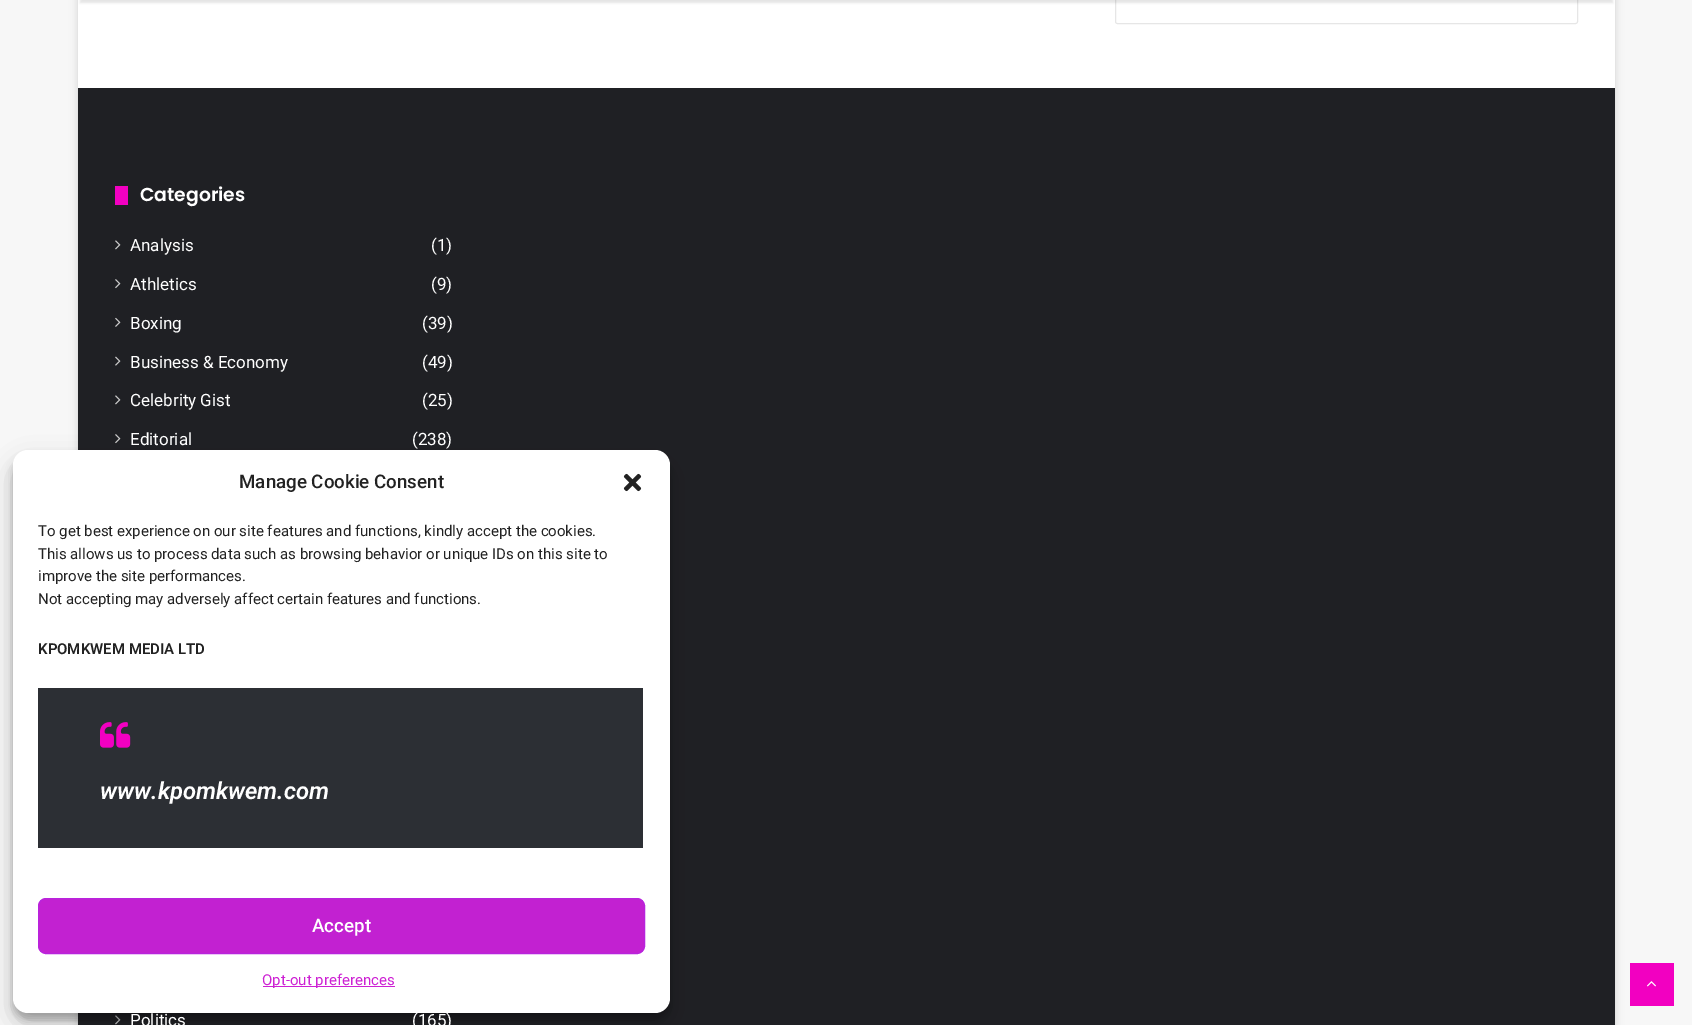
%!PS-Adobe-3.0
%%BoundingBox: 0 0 1692 1025
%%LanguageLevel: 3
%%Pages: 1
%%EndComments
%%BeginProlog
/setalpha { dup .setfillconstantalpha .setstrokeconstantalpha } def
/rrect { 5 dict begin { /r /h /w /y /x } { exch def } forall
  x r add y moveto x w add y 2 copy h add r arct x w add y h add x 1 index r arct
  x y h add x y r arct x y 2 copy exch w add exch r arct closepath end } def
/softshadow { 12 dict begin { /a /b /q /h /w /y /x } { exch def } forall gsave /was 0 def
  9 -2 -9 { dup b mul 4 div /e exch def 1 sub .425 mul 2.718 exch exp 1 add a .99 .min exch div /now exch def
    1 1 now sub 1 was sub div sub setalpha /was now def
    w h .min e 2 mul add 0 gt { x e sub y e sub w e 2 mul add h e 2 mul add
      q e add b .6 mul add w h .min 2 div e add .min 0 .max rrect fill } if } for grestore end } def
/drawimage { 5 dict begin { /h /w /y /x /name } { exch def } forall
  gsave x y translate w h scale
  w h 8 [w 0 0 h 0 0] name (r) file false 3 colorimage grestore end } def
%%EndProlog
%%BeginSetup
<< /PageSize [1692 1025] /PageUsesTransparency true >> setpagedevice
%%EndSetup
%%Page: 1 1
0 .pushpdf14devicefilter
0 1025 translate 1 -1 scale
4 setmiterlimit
0.969 setgray
0 0 1692 1025 rectfill
0.671 setgray
78 -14 1537 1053 0 4.5 0.5 softshadow
1 setgray
78 0 1537 88 rectfill
0.902 setgray
1115.5 -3.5 462 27 2 rrect stroke
0 setgray
80 -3 1533 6 0 1 0.1 softshadow
0.122 0.125 0.141 setrgbcolor
78 88 1537 937 rectfill
0.949 0 0.757 setrgbcolor
115 186 13 19 rectfill
(images/1.raw) 115 240 6 10 drawimage
(images/2.raw) 115 279 6 10 drawimage
(images/3.raw) 115 317 6 10 drawimage
(images/4.raw) 115 356 6 10 drawimage
(images/1.raw) 115 395 6 10 drawimage
(images/2.raw) 115 434 6 10 drawimage
(images/1.raw) 115 1015 6 10 drawimage
1630 963 44 43 rectfill
(images/5.raw) 1647 981 9 6 drawimage
0 setgray
13 458 657 562 15 4 0.23 softshadow
13 463 657 562 15 12.5 0.19 softshadow
1 setgray
13 450 657 563 15 rrect fill
(images/6.raw) 623 473 19 19 drawimage
0.173 0.184 0.204 setrgbcolor
38 688 605 160 rectfill
(images/7.raw) 100 722 31 26 drawimage
0.761 0.129 0.82 setrgbcolor
38.5 898.5 606 55 7.5 rrect gsave fill grestore
0.722 0.137 0.867 setrgbcolor
stroke
0.804 0.129 0.827 setrgbcolor
263 986 132 1 rectfill
/Poppins-SemiBold [18.75 0 0 -18.75 0 0] selectfont
1 setgray
140 201 moveto (Categories) show
/Roboto-Regular [17 0 0 -17 0 0] selectfont
130 251 moveto (Analysis) show
431 251 moveto (\(1\)) show
130 290 moveto (Athletics) show
431 290 moveto (\(9\)) show
130 329 moveto (Boxing) show
422 329 moveto (\(39\)) show
130 368 moveto (Business & Economy) show
422 368 moveto (\(49\)) show
130 406 moveto (Celebrity Gist) show
422 406 moveto (\(25\)) show
130 445 moveto (Editorial) show
412 445 moveto (\(238\)) show
130 1026 moveto (Politics) show
412 1026 moveto (\(165\)) show
/Roboto-Medium [18.75 0 0 -18.75 0 0] selectfont
0.133 setgray
239 488 moveto (Manage Cookie Consent) show
/Roboto-Regular [15 0 0 -15 0 0] selectfont
38 536 moveto (To get best experience on our site features and functions, kindly accept the cookies.) show
38 559 moveto (This allows us to process data such as browsing behavior or unique IDs on this site to) show
38 581 moveto (improve the site performances.) show
38 604 moveto (Not accepting may adversely affect certain features and functions.) show
/Roboto-SemiBold [15 0 0 -15 0 0] selectfont
38 654 moveto (KPOMKWEM MEDIA LTD) show
/Roboto-SemiBoldItalic [23.75 0 0 -23.75 0 0] selectfont
1 setgray
100 799 moveto (www.kpomkwem.com) show
/Roboto-Medium [18.75 0 0 -18.75 0 0] selectfont
312 932 moveto (Accept) show
/Roboto-Regular [15 0 0 -15 0 0] selectfont
0.804 0.129 0.827 setrgbcolor
262 985 moveto (Opt-out preferences) show
.poppdf14devicefilter showpage
%%EOF
